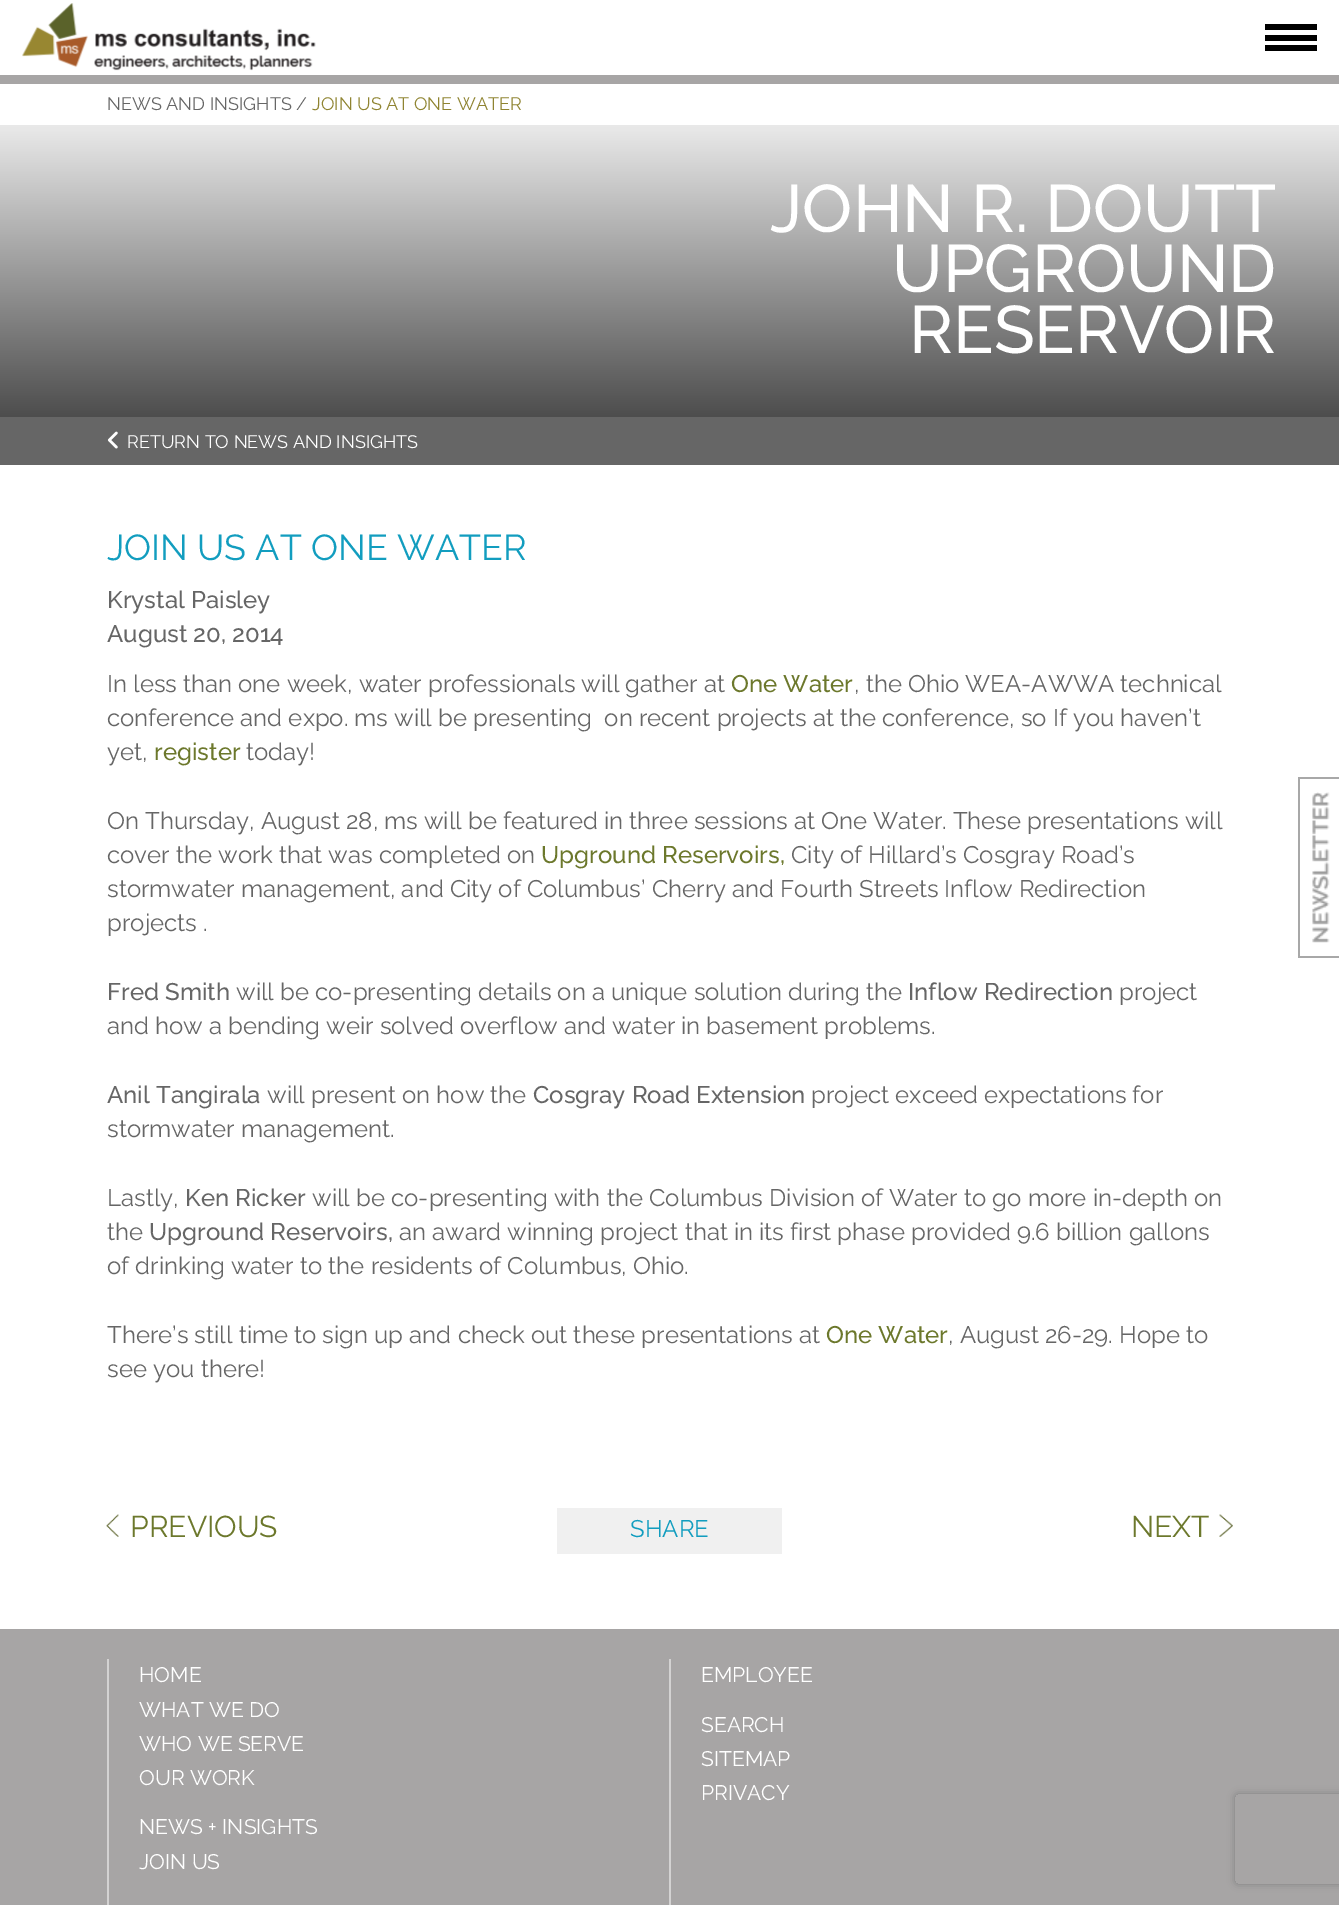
%!PS-Adobe-3.0
%%BoundingBox: 0 0 1339 1905
%%LanguageLevel: 3
%%Pages: 1
%%EndComments
%%BeginProlog
/setalpha { dup .setfillconstantalpha .setstrokeconstantalpha } def
/rrect { 5 dict begin { /r /h /w /y /x } { exch def } forall
  x r add y moveto x w add y 2 copy h add r arct x w add y h add x 1 index r arct
  x y h add x y r arct x y 2 copy exch w add exch r arct closepath end } def
/softshadow { 12 dict begin { /a /b /q /h /w /y /x } { exch def } forall gsave /was 0 def
  9 -2 -9 { dup b mul 4 div /e exch def 1 sub .425 mul 2.718 exch exp 1 add a .99 .min exch div /now exch def
    1 1 now sub 1 was sub div sub setalpha /was now def
    w h .min e 2 mul add 0 gt { x e sub y e sub w e 2 mul add h e 2 mul add
      q e add b .6 mul add w h .min 2 div e add .min 0 .max rrect fill } if } for grestore end } def
/drawimage { 5 dict begin { /h /w /y /x /name } { exch def } forall
  gsave x y translate w h scale
  w h 8 [w 0 0 h 0 0] name (r) file false 3 colorimage grestore end } def
%%EndProlog
%%BeginSetup
<< /PageSize [1339 1905] /PageUsesTransparency true >> setpagedevice
%%EndSetup
%%Page: 1 1
0 .pushpdf14devicefilter
0 1905 translate 1 -1 scale
4 setmiterlimit
1 setgray
0 0 1339 1905 rectfill
(images/1.raw) 22 3 294 68 drawimage
0 setgray
1265 35 52 6 rectfill
1265 24 52 6 rectfill
1265 45 52 6 rectfill
0.655 0.647 0.647 setrgbcolor
0 75 1339 9 rectfill
gsave newpath 0 125 moveto 1339 125 lineto 1339 417 lineto 0 417 lineto closepath clip newpath
<< /ShadingType 2 /ColorSpace /DeviceRGB /Coords [670 81 670 417] /Extend [true true] /Function << /FunctionType 3 /Domain [0 1] /Functions [<< /FunctionType 2 /Domain [0 1] /C0 [1 1 1] /C1 [0.902 0.902 0.902] /N 1 >> << /FunctionType 2 /Domain [0 1] /C0 [0.902 0.902 0.902] /C1 [0.302 0.302 0.302] /N 1 >>] /Bounds [0.15] /Encode [0 1 0 1] >> >> shfill grestore
0.4 setgray
0 417 1339 48 rectfill
(images/2.raw) 107 431 11 18 drawimage
(images/3.raw) 1312 792 18 151 drawimage
0.659 setgray
1298 777 41 2 rectfill
1298 956 41 2 rectfill
1298 777 2 180 rectfill
(images/4.raw) 106 1514 13 23 drawimage
0.941 setgray
557 1508 225 46 rectfill
(images/5.raw) 1219 1514 14 23 drawimage
0.655 0.647 0.647 setrgbcolor
0 1629 1339 276 rectfill
0.827 0.824 0.824 setrgbcolor
107 1659 2 246 rectfill
669 1659 2 246 rectfill
gsave
newpath 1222 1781 moveto 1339 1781 lineto 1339 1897 lineto 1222 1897 lineto closepath 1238 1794 moveto 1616 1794 lineto 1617.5 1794 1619 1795.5 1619 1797 curveto 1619 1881 lineto 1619 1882.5 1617.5 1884 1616 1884 curveto 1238 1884 lineto 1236.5 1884 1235 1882.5 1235 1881 curveto 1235 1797 lineto 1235 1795.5 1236.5 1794 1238 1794 curveto closepath eoclip newpath
0.502 setgray
1235 1794 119 90 3 4 1 softshadow
grestore
/Raleway-Regular [18 0 0 -18 0 0] selectfont
0.4 setgray
107 110 moveto (NEWS AND INSIGHTS /) show
0.561 0.518 0.192 setrgbcolor
312 110 moveto (JOIN US AT ONE WATER) show
/Raleway-Medium [67 0 0 -67 0 0] selectfont
1 setgray
770 232 moveto (JOHN R. DOUTT) show
892 292 moveto (UPGROUND) show
909 353 moveto (RESERVOIR) show
/Raleway-Regular [18 0 0 -18 0 0] selectfont
127 448 moveto (RETURN TO NEWS AND INSIGHTS) show
/Raleway-Regular [36 0 0 -36 0 0] selectfont
0.071 0.616 0.749 setrgbcolor
107 560 moveto (JOIN US AT ONE WATER) show
/Raleway-Medium [24 0 0 -24 0 0] selectfont
0.4 setgray
107 608 moveto (Krystal Paisley) show
107 642 moveto (August 20, 2014) show
/Raleway-Regular [24 0 0 -24 0 0] selectfont
107 692 moveto (In less than one week, water professionals will gather at) show
/Raleway-Medium [24 0 0 -24 0 0] selectfont
0.424 0.471 0.173 setrgbcolor
731 692 moveto (One Water) show
/Raleway-Regular [24 0 0 -24 0 0] selectfont
0.4 setgray
854 692 moveto (, the Ohio WEA-AWWA technical) show
107 726 moveto (conference and expo. ms will be presenting  on recent projects at the conference, so If you haven’t) show
107 760 moveto (yet,) show
/Raleway-Medium [24 0 0 -24 0 0] selectfont
0.424 0.471 0.173 setrgbcolor
154 760 moveto (register) show
/Raleway-Regular [24 0 0 -24 0 0] selectfont
0.4 setgray
246 760 moveto (today!) show
107 829 moveto (On Thursday, August 28, ms will be featured in three sessions at One Water. These presentations will) show
107 863 moveto (cover the work that was completed on) show
/Raleway-Medium [24 0 0 -24 0 0] selectfont
0.424 0.471 0.173 setrgbcolor
541 863 moveto (Upground Reservoirs,) show
/Raleway-Regular [24 0 0 -24 0 0] selectfont
0.4 setgray
791 863 moveto (City of Hillard’s Cosgray Road’s) show
107 897 moveto (stormwater management, and City of Columbus’ Cherry and Fourth Streets Inflow Redirection) show
107 931 moveto (projects .) show
/Raleway-Medium [24 0 0 -24 0 0] selectfont
107 1000 moveto (Fred Smith) show
/Raleway-Regular [24 0 0 -24 0 0] selectfont
236 1000 moveto (will be co-presenting details on a unique solution during the) show
/Raleway-Medium [24 0 0 -24 0 0] selectfont
908 1000 moveto (Inflow Redirection) show
/Raleway-Regular [24 0 0 -24 0 0] selectfont
1119 1000 moveto (project) show
107 1034 moveto (and how a bending weir solved overflow and water in basement problems.) show
/Raleway-Medium [24 0 0 -24 0 0] selectfont
107 1103 moveto (Anil Tangirala) show
/Raleway-Regular [24 0 0 -24 0 0] selectfont
267 1103 moveto (will present on how the) show
/Raleway-Medium [24 0 0 -24 0 0] selectfont
533 1103 moveto (Cosgray Road Extension) show
/Raleway-Regular [24 0 0 -24 0 0] selectfont
811 1103 moveto (project exceed expectations for) show
107 1137 moveto (stormwater management.) show
107 1206 moveto (Lastly,) show
/Raleway-Medium [24 0 0 -24 0 0] selectfont
185 1206 moveto (Ken Ricker) show
/Raleway-Regular [24 0 0 -24 0 0] selectfont
312 1206 moveto (will be co-presenting with the Columbus Division of Water to go more in-depth on) show
107 1240 moveto (the) show
/Raleway-Medium [24 0 0 -24 0 0] selectfont
149 1240 moveto (Upground Reservoirs,) show
/Raleway-Regular [24 0 0 -24 0 0] selectfont
399 1240 moveto (an award winning project that in its first phase provided 9.6 billion gallons) show
107 1274 moveto (of drinking water to the residents of Columbus, Ohio.) show
107 1343 moveto (There’s still time to sign up and check out these presentations at) show
/Raleway-Medium [24 0 0 -24 0 0] selectfont
0.424 0.471 0.173 setrgbcolor
826 1343 moveto (One Water) show
/Raleway-Regular [24 0 0 -24 0 0] selectfont
0.4 setgray
948 1343 moveto (, August 26-29. Hope to) show
107 1377 moveto (see you there!) show
/Raleway-Regular [30 0 0 -30 0 0] selectfont
0.424 0.471 0.173 setrgbcolor
130 1537 moveto (PREVIOUS) show
/Raleway-Regular [24 0 0 -24 0 0] selectfont
0.071 0.616 0.749 setrgbcolor
630 1537 moveto (SHARE) show
/Raleway-Regular [30 0 0 -30 0 0] selectfont
0.424 0.471 0.173 setrgbcolor
1131 1537 moveto (NEXT) show
/Raleway-Regular [21 0 0 -21 0 0] selectfont
1 setgray
139 1682 moveto (HOME) show
139 1717 moveto (WHAT WE DO) show
139 1751 moveto (WHO WE SERVE) show
139 1785 moveto (OUR WORK) show
139 1834 moveto (NEWS + INSIGHTS) show
139 1869 moveto (JOIN US) show
701 1682 moveto (EMPLOYEE) show
701 1732 moveto (SEARCH) show
701 1766 moveto (SITEMAP) show
701 1800 moveto (PRIVACY) show
.poppdf14devicefilter showpage
%%EOF
